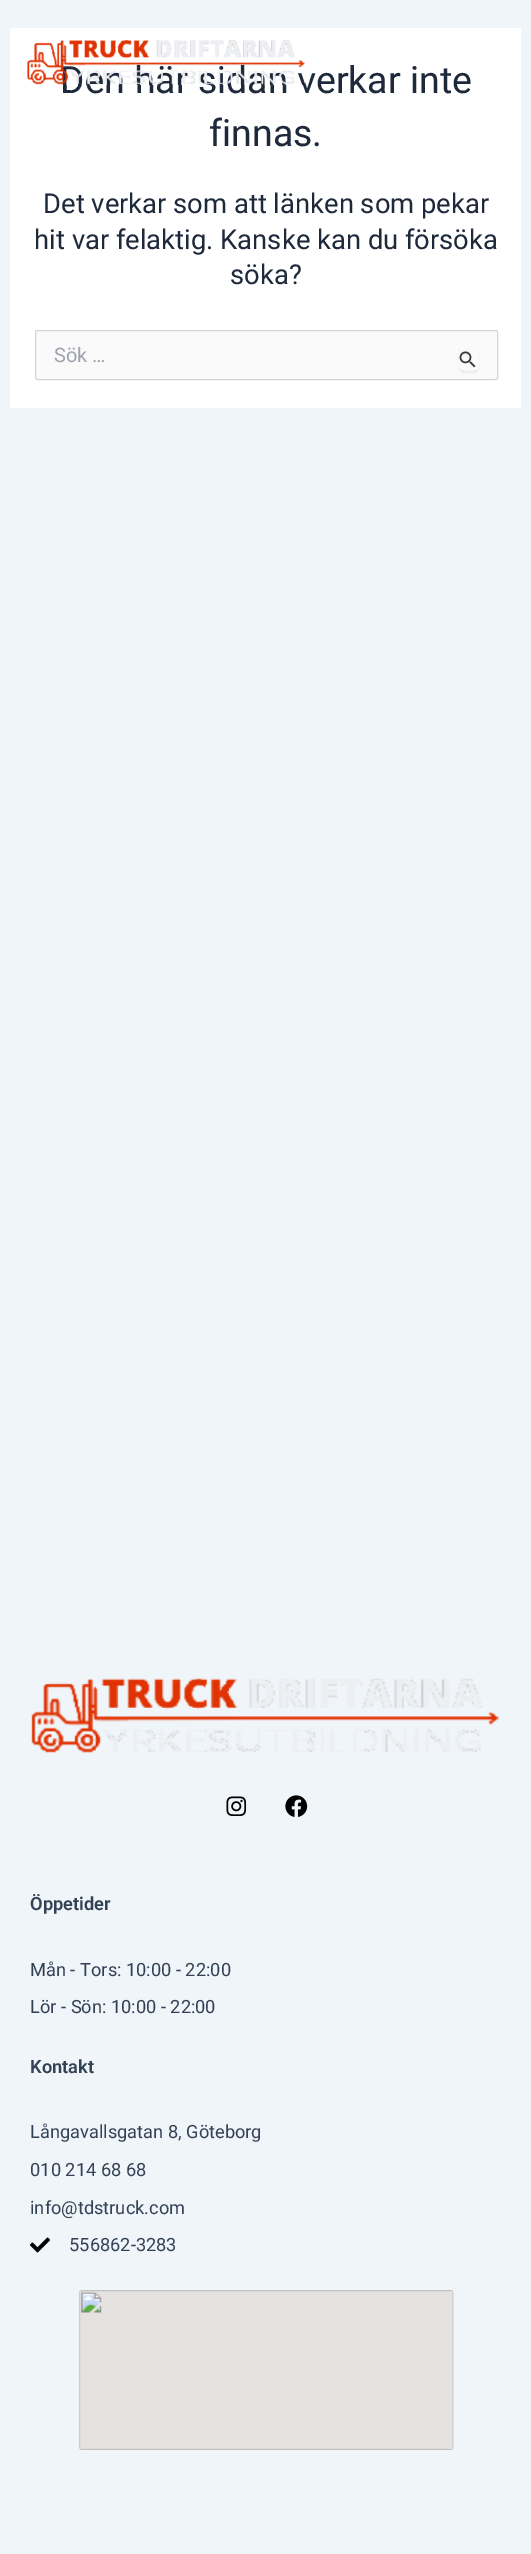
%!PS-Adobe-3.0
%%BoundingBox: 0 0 531 2554
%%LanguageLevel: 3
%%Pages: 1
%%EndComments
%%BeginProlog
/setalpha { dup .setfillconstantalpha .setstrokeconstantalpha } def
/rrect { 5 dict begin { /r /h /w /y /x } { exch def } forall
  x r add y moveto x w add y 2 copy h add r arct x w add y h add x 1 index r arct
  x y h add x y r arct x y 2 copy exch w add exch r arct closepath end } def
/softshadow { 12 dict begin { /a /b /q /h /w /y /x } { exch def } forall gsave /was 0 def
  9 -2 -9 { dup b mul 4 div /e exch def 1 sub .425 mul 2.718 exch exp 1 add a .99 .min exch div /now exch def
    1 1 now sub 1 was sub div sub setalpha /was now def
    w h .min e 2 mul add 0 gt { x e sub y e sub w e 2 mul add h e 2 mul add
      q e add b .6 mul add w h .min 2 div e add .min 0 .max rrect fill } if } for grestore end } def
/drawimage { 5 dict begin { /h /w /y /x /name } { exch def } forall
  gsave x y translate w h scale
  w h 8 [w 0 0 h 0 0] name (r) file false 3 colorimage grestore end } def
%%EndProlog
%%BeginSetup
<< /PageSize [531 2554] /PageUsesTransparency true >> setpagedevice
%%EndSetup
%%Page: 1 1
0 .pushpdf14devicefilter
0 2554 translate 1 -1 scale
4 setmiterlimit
0.941 0.961 0.98 setrgbcolor
0 0 531 2554 rectfill
1 setgray
10 28 511 380 rectfill
0.98 setgray
35.5 330.5 462 49 2 rrect gsave fill grestore
0.82 0.835 0.859 setrgbcolor
stroke
gsave
newpath 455 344 moveto 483 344 lineto 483 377 lineto 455 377 lineto closepath 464 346 moveto 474 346 lineto 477 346 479 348 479 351 curveto 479 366 lineto 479 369 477 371 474 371 curveto 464 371 lineto 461 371 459 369 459 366 curveto 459 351 lineto 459 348 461 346 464 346 curveto closepath eoclip newpath
0 setgray
459 348 20 25 5 1 0.05 softshadow
grestore
(images/2.raw) 459 351 17 17 drawimage
(images/3.raw) 31 1678 469 75 drawimage
(images/4.raw) 226 1796 21 20 drawimage
(images/5.raw) 285 1795 23 22 drawimage
(images/6.raw) 30 2237 20 16 drawimage
(images/7.raw) 78 2290 376 160 drawimage
/Roboto-Regular [37.5 0 0 -37.5 0 0] selectfont
0.118 0.161 0.231 setrgbcolor
60 93 moveto (Den här sidan verkar inte) show
(images/1.raw) 27 40 278 45 drawimage
209 146 moveto (finnas.) show
/Roboto-Regular [27.4 0 0 -27.4 0 0] selectfont
43 213 moveto (Det verkar som att länken som pekar) show
34 249 moveto (hit var felaktig. Kanske kan du försöka) show
230 284 moveto (söka?) show
/Roboto-Regular [20 0 0 -20 0 0] selectfont
0.612 0.639 0.686 setrgbcolor
54 362 moveto (Sök …) show
/Roboto-SemiBold [18.25 0 0 -18.25 0 0] selectfont
0.2 0.255 0.333 setrgbcolor
30 1910 moveto (Öppetider) show
/Roboto-Regular [18.25 0 0 -18.25 0 0] selectfont
30 1976 moveto (Mån - Tors: 10:00 - 22:00) show
30 2013 moveto (Lör - Sön: 10:00 - 22:00) show
/Roboto-SemiBold [18.25 0 0 -18.25 0 0] selectfont
30 2073 moveto (Kontakt) show
/Roboto-Regular [18.25 0 0 -18.25 0 0] selectfont
30 2138 moveto (Långavallsgatan 8, Göteborg) show
30 2176 moveto (010 214 68 68) show
30 2214 moveto (info@tdstruck.com) show
69 2251 moveto (556862-3283) show
.poppdf14devicefilter showpage
%%EOF
